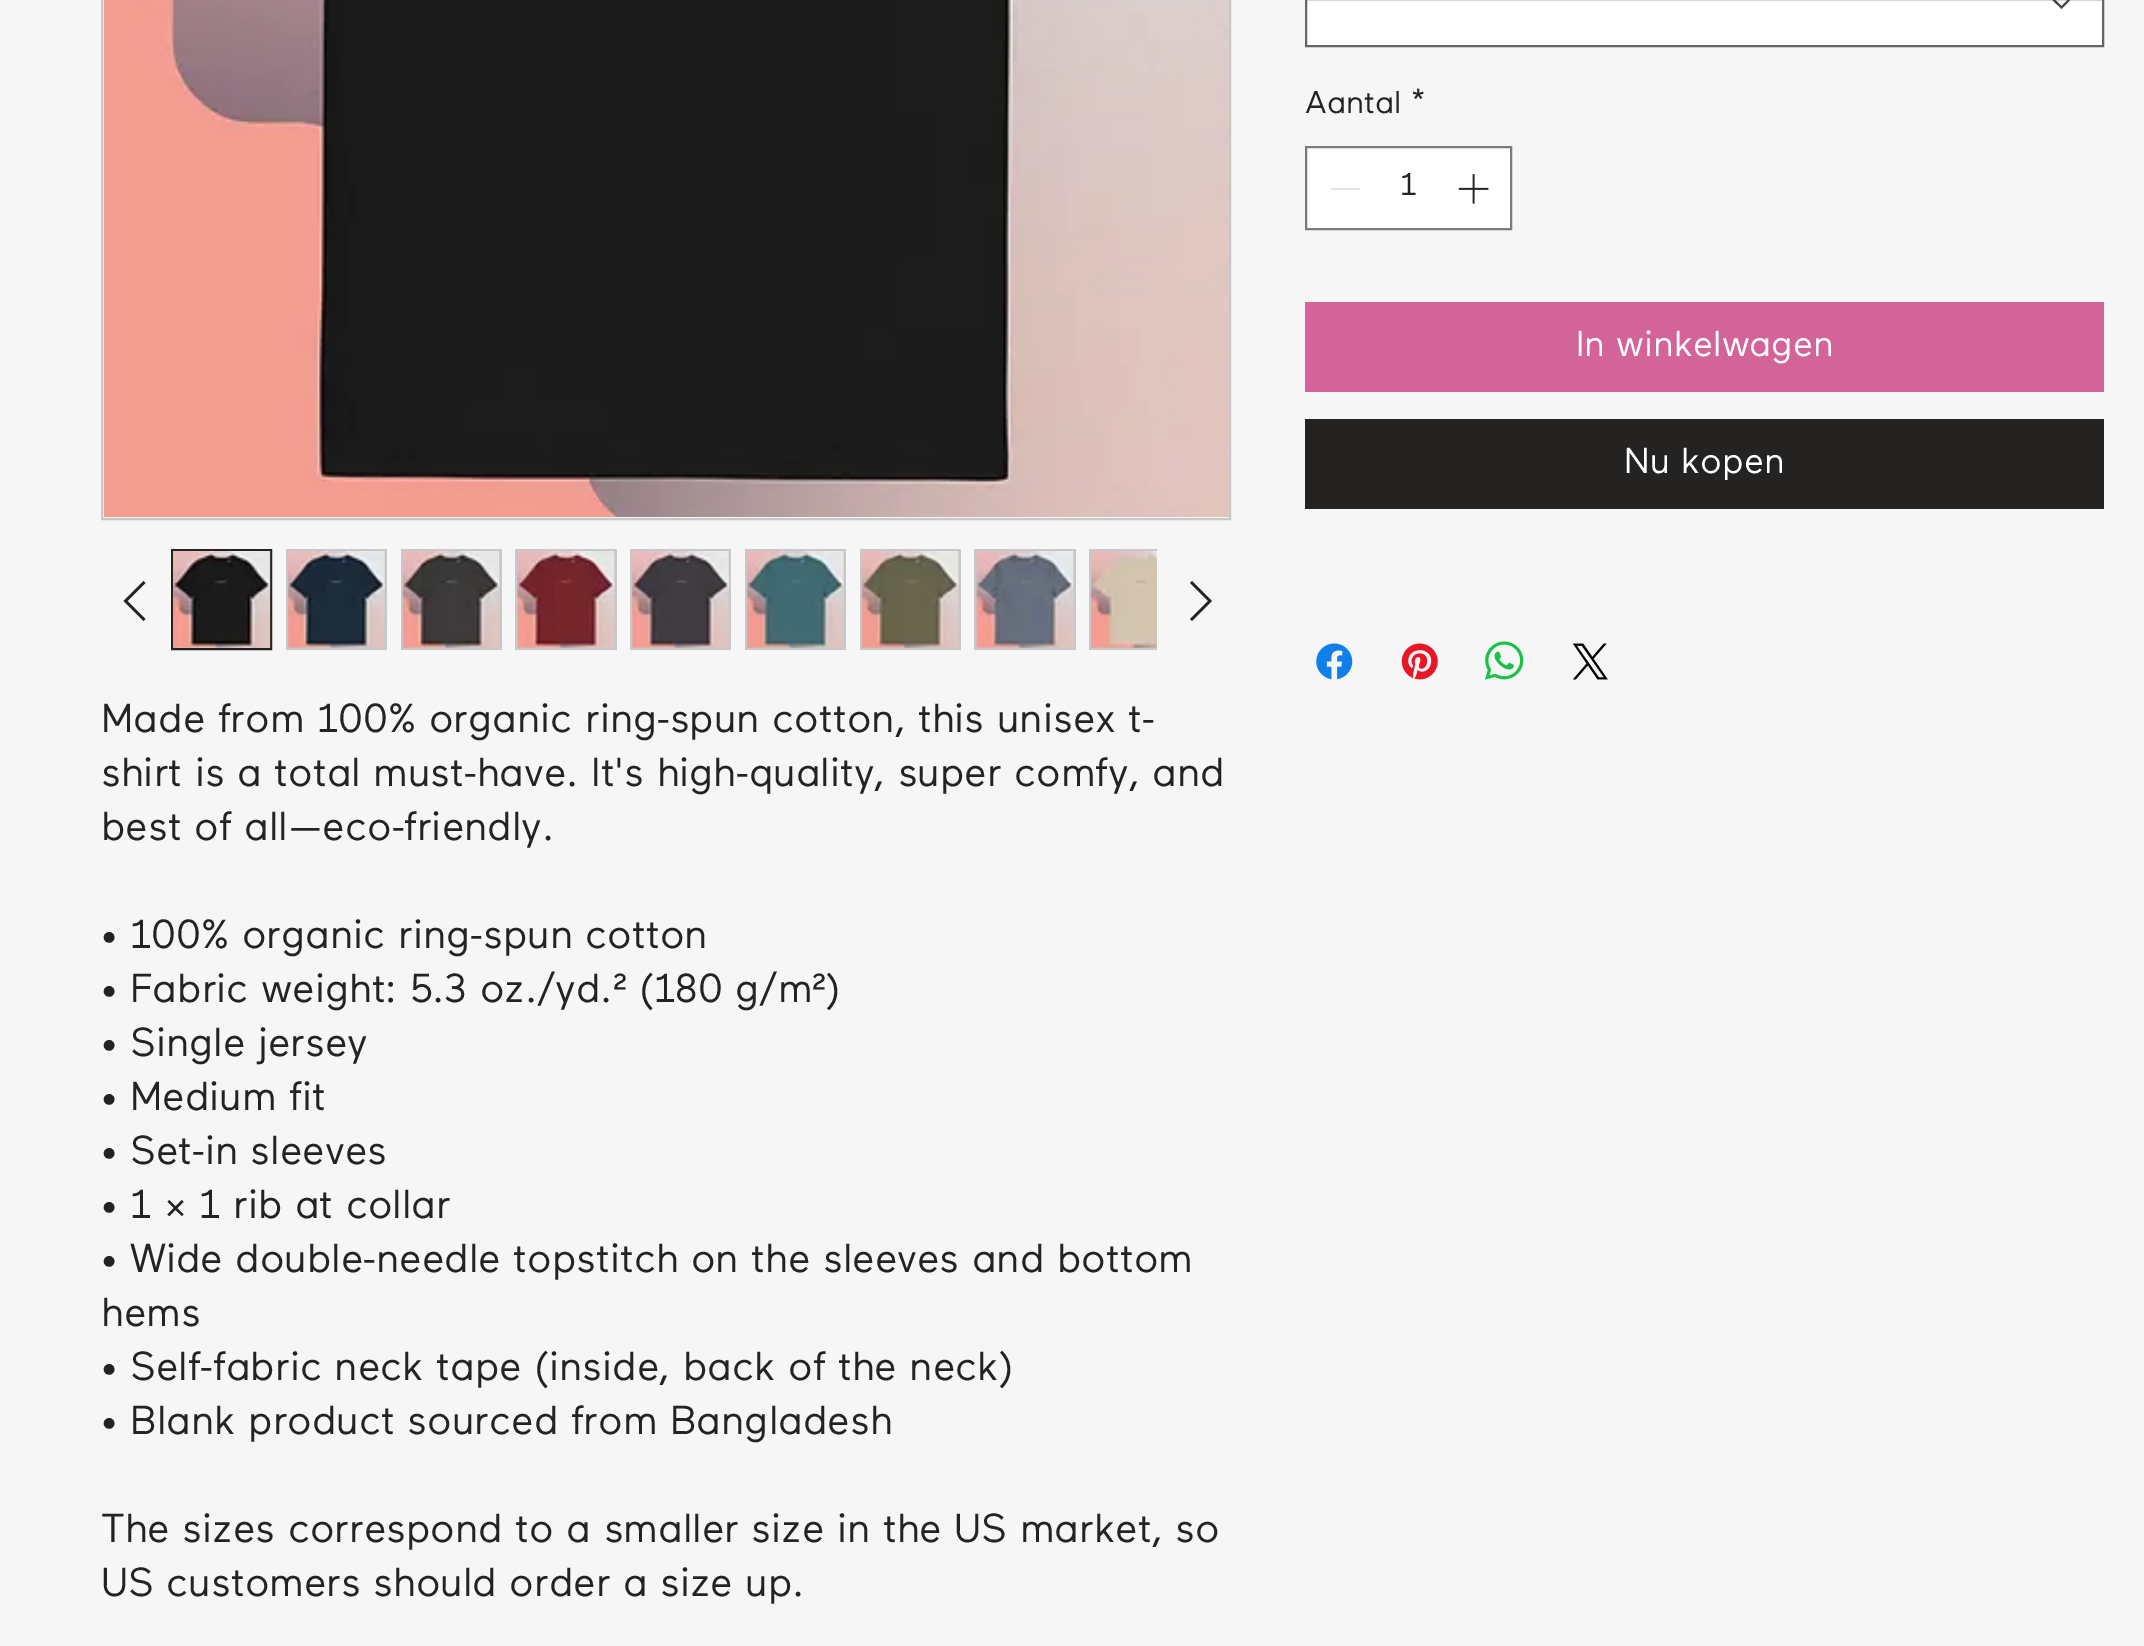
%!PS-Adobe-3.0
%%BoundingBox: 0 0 2144 1646
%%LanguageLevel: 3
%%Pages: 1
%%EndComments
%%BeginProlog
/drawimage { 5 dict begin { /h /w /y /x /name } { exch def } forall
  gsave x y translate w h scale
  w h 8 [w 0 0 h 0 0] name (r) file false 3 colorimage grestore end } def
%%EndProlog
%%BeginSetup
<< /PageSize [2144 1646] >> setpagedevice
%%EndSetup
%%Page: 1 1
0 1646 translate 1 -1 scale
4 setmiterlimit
0.965 setgray
0 0 2144 1646 rectfill
1 setgray
newpath 1306 -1 moveto 2103 -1 lineto 2103 46 lineto 1306 46 lineto closepath gsave fill grestore
0.4 setgray
2 setlinewidth
stroke
0.267 setgray
newpath 2075 -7.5 moveto 2076 -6 lineto 2061.5 9 lineto 2046.5 -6 lineto 2048 -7.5 lineto 2061.5 6 lineto closepath eofill
1 setgray
newpath 1306 147 moveto 1511 147 lineto 1511 229 lineto 1306 229 lineto closepath gsave fill grestore
0.486 0.482 0.478 setrgbcolor
stroke
0.89 setgray
1331 188 29 2 rectfill
(images/1.raw) 1458 174 31 30 drawimage
0.824 0.392 0.6 setrgbcolor
1305 302 799 90 rectfill
0.145 0.137 0.133 setrgbcolor
1305 419 799 90 rectfill
(images/2.raw) 1316 643 37 37 drawimage
(images/3.raw) 1401 643 37 37 drawimage
(images/4.raw) 1485 641 39 39 drawimage
(images/5.raw) 1572 643 36 37 drawimage
0.788 0.784 0.784 setrgbcolor
102 -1 1128 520 rectstroke
(images/6.raw) 104 0 1125 517 drawimage
0.145 0.137 0.133 setrgbcolor
newpath 143.5 581 moveto 145.5 583 lineto 127.5 601 lineto 145.5 619 lineto 143.5 621 lineto 123.5 601 lineto closepath eofill
0.788 0.784 0.784 setrgbcolor
newpath 172 550 moveto 271 550 lineto 271 649 lineto 172 649 lineto closepath gsave fill grestore
0.145 0.137 0.133 setrgbcolor
stroke
(images/7.raw) 173 551 98 97 drawimage
0.788 0.784 0.784 setrgbcolor
286 549 101 101 rectfill
(images/8.raw) 288 551 97 97 drawimage
401 549 101 101 rectfill
(images/9.raw) 402 551 98 97 drawimage
515 549 102 101 rectfill
(images/10.raw) 517 551 98 97 drawimage
630 549 101 101 rectfill
(images/11.raw) 632 551 98 97 drawimage
745 549 101 101 rectfill
(images/12.raw) 747 551 97 97 drawimage
860 549 101 101 rectfill
(images/13.raw) 861 551 98 97 drawimage
974 549 102 101 rectfill
(images/14.raw) 976 551 98 97 drawimage
1089 549 68 101 rectfill
(images/15.raw) 1091 551 66 97 drawimage
0.145 0.137 0.133 setrgbcolor
newpath 1192 581 moveto 1212 601 lineto 1192 621 lineto 1190 619 lineto 1208 601 lineto 1190 583 lineto closepath eofill
/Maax-Regular [31.5 0 0 -31.5 0 0] selectfont
1305 113 moveto (Aantal) show
1411 113 moveto (*) show
1400 195 moveto (1) show
/Maax-Regular [36 0 0 -36 0 0] selectfont
1 setgray
1576 356 moveto (In winkelwagen) show
1624 473 moveto (Nu kopen) show
/Maax-Regular [40.5 0 0 -40.5 0 0] selectfont
0.145 0.137 0.133 setrgbcolor
101 732 moveto (Made from 100% organic ring-spun cotton, this unisex t-) show
101 786 moveto (shirt is a total must-have. It's high-quality, super comfy, and) show
101 840 moveto (best of all—eco-friendly.) show
101 948 moveto (• 100% organic ring-spun cotton) show
101 1002 moveto (• Fabric weight: 5.3 oz./yd.² \(180 g/m²\)) show
101 1056 moveto (• Single jersey) show
101 1110 moveto (• Medium fit) show
101 1164 moveto (• Set-in sleeves) show
101 1218 moveto (• 1 × 1 rib at collar) show
101 1272 moveto (• Wide double-needle topstitch on the sleeves and bottom) show
101 1326 moveto (hems) show
101 1380 moveto (• Self-fabric neck tape \(inside, back of the neck\)) show
101 1434 moveto (• Blank product sourced from Bangladesh) show
101 1542 moveto (The sizes correspond to a smaller size in the US market, so) show
101 1596 moveto (US customers should order a size up.) show
showpage
%%EOF
